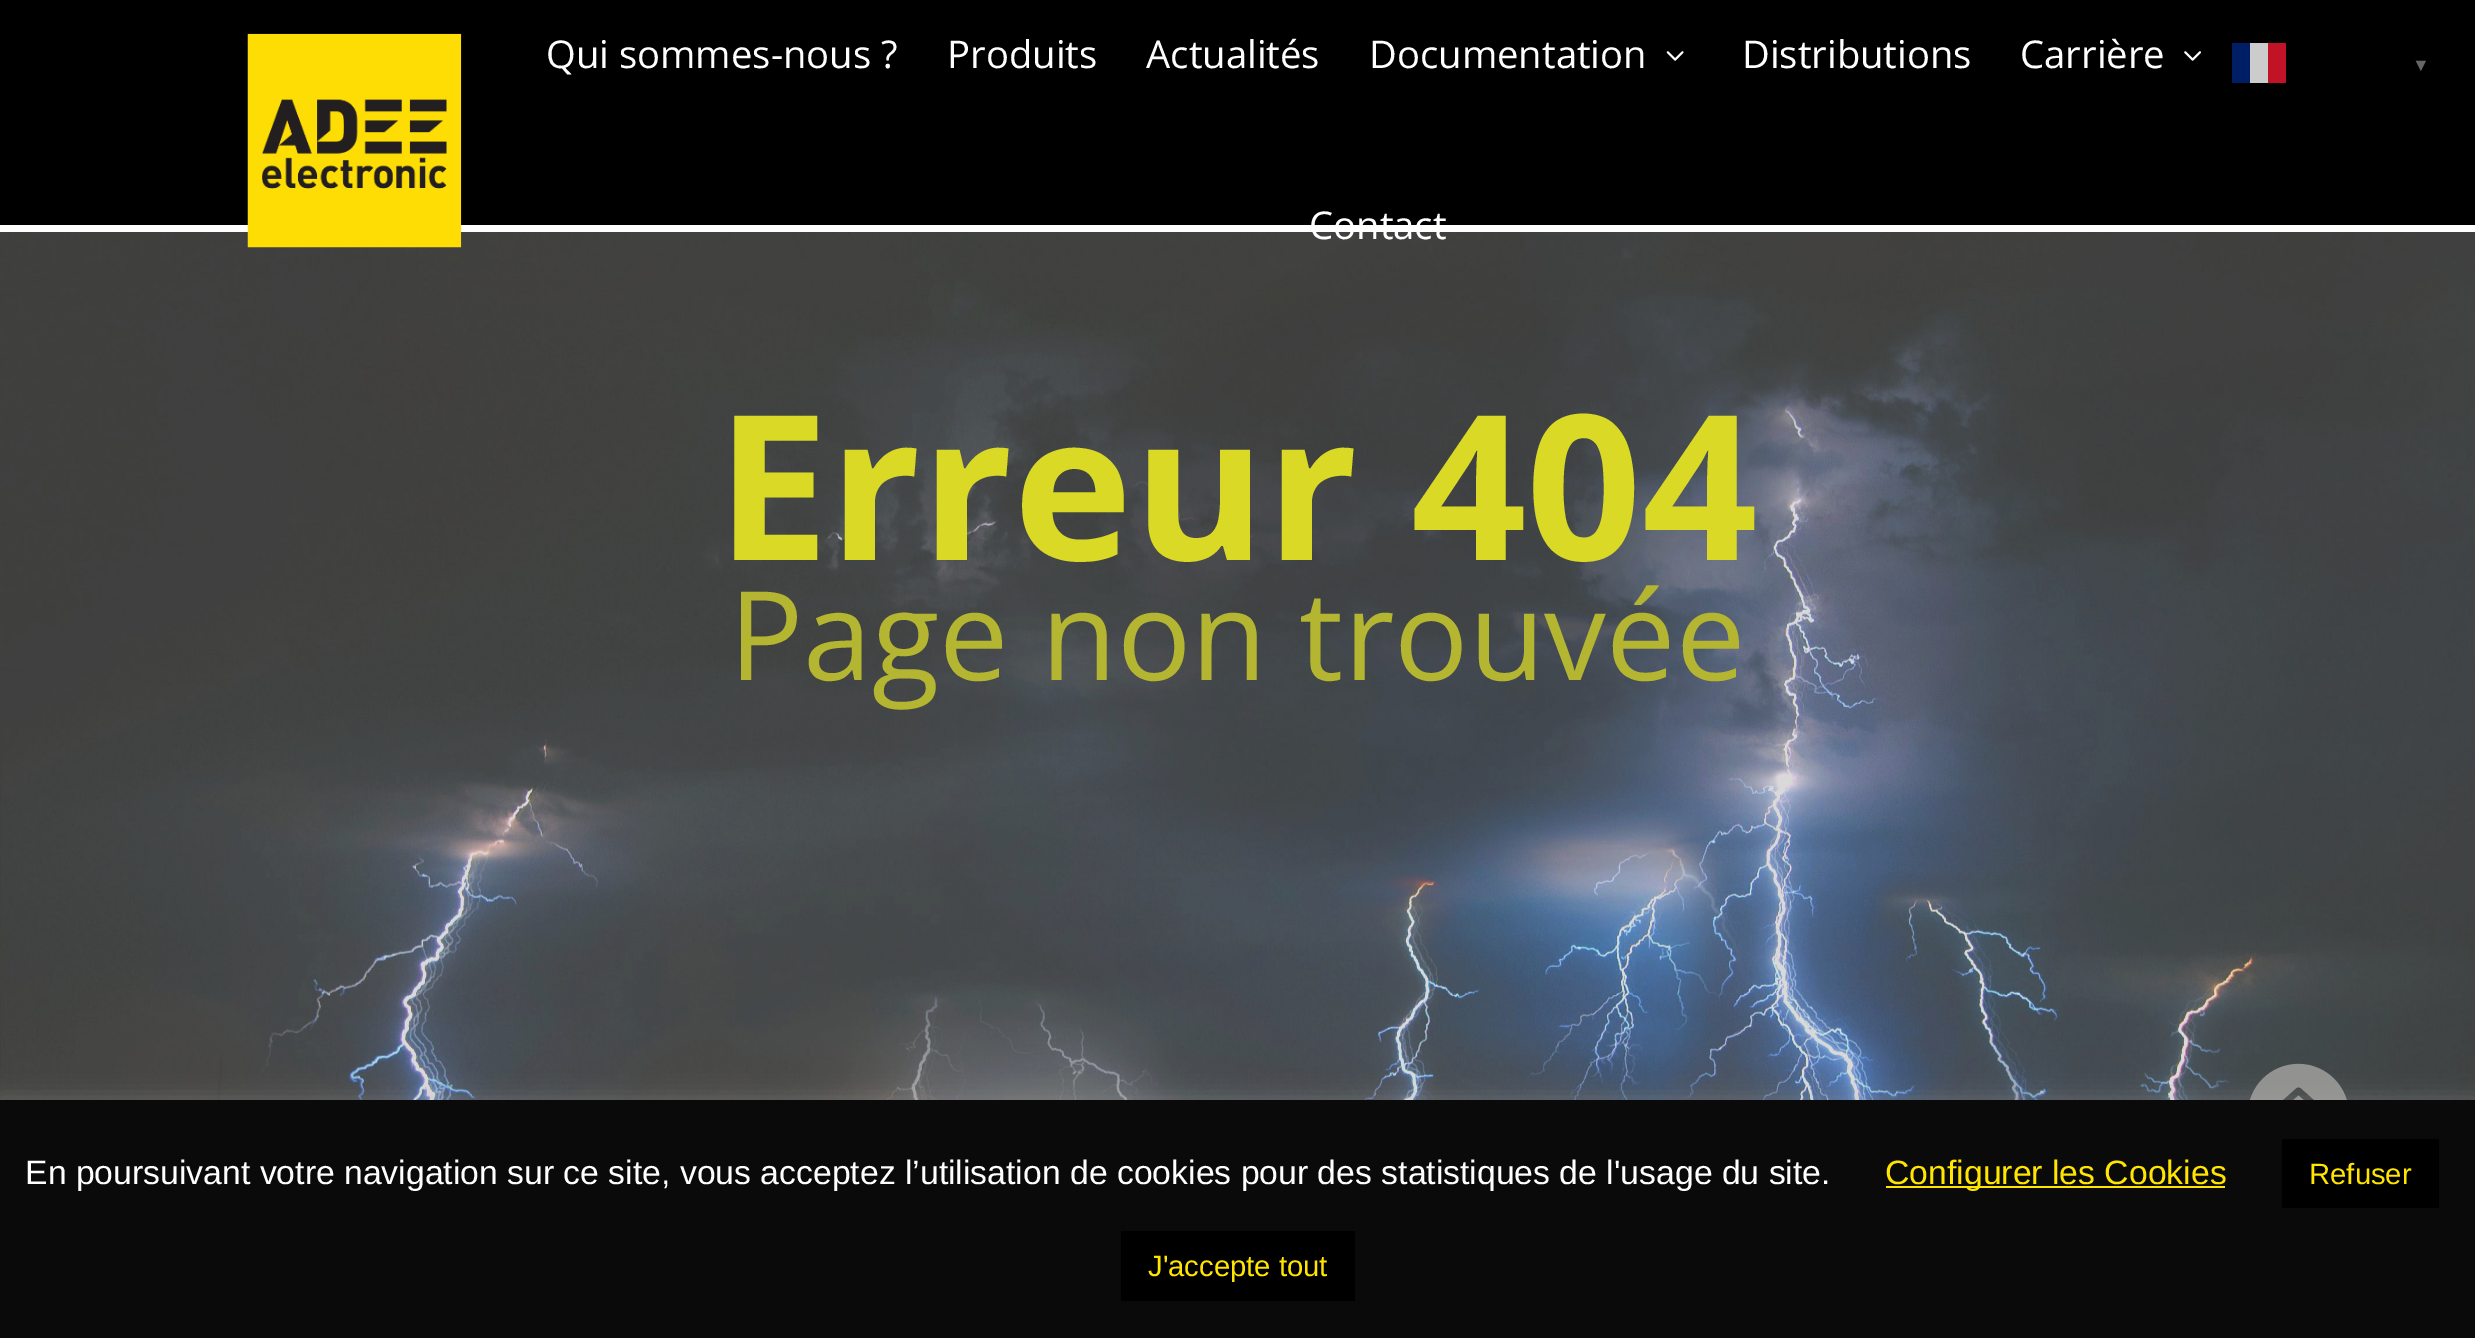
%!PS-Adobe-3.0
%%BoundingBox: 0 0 2475 1338
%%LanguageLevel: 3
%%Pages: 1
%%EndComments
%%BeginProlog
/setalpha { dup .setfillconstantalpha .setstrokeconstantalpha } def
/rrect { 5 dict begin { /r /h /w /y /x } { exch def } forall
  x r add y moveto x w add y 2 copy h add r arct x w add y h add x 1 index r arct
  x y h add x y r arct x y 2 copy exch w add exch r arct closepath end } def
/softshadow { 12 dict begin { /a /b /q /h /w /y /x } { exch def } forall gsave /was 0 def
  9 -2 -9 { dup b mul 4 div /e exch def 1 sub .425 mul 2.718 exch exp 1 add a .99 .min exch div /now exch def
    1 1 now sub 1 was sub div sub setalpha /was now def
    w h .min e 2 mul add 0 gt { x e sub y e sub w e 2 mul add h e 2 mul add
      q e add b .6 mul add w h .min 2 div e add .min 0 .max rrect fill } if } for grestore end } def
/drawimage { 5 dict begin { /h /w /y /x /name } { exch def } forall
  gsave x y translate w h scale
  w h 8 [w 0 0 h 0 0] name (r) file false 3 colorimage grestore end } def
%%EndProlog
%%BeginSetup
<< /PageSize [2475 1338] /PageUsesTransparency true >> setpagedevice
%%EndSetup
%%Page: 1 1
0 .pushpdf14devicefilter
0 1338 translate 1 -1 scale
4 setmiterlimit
1 setgray
0 0 2475 1338 rectfill
0 setgray
0 0 2475 225 rectfill
(images/4.raw) 0 232 2475 868 drawimage
(images/1.raw) 247 33 215 215 drawimage
(images/2.raw) 1666 51 18 10 drawimage
(images/3.raw) 2184 51 17 10 drawimage
(images/5.raw) 2249 1063 98 37 drawimage
0.8 setgray
2250 43 18 40 rectfill
0 0.118 0.4 setrgbcolor
2232 43 18 40 rectfill
0.761 0.075 0.149 setrgbcolor
2268 43 18 40 rectfill
0.675 0.671 0.671 setrgbcolor
0 1098 2475 239 0 11 0.3 softshadow
0.039 setgray
0 1100 2475 238 rectfill
1 0.898 0 setrgbcolor
1886 1186 339 2 rectfill
0 setgray
2282 1139 157 69 rectfill
1121 1231 234 70 rectfill
/OpenSans-Regular [38.25 0 0 -38.25 0 0] selectfont
1 setgray
546 68 moveto (Qui sommes-nous ?) show
947 68 moveto (Produits) show
1146 68 moveto (Actualités) show
1369 68 moveto (Documentation) show
1742 68 moveto (Distributions) show
2020 68 moveto (Carrière) show
1309 239 moveto (Contact) show
/OpenSans-Bold [202.5 0 0 -202.5 0 0] selectfont
0.851 0.851 0.149 setrgbcolor
716 560 moveto (Erreur 404) show
/OpenSans-Regular [123.75 0 0 -123.75 0 0] selectfont
0.706 0.71 0.188 setrgbcolor
729 680 moveto (Page non trouvée) show
/LiberationSans-Bold [18 0 0 -18 0 0] selectfont
0.4 setgray
2412 71 moveto (▼) show
/LiberationSans-Regular [33.75 0 0 -33.75 0 0] selectfont
1 setgray
25 1184 moveto (En poursuivant votre navigation sur ce site, vous acceptez l’utilisation de cookies pour des statistiques de l'usage du site.) show
1 0.898 0 setrgbcolor
1885 1184 moveto (Configurer les Cookies) show
/LiberationSans-Regular [29.25 0 0 -29.25 0 0] selectfont
2309 1184 moveto (Refuser) show
1148 1276 moveto (J'accepte tout) show
.poppdf14devicefilter showpage
%%EOF
